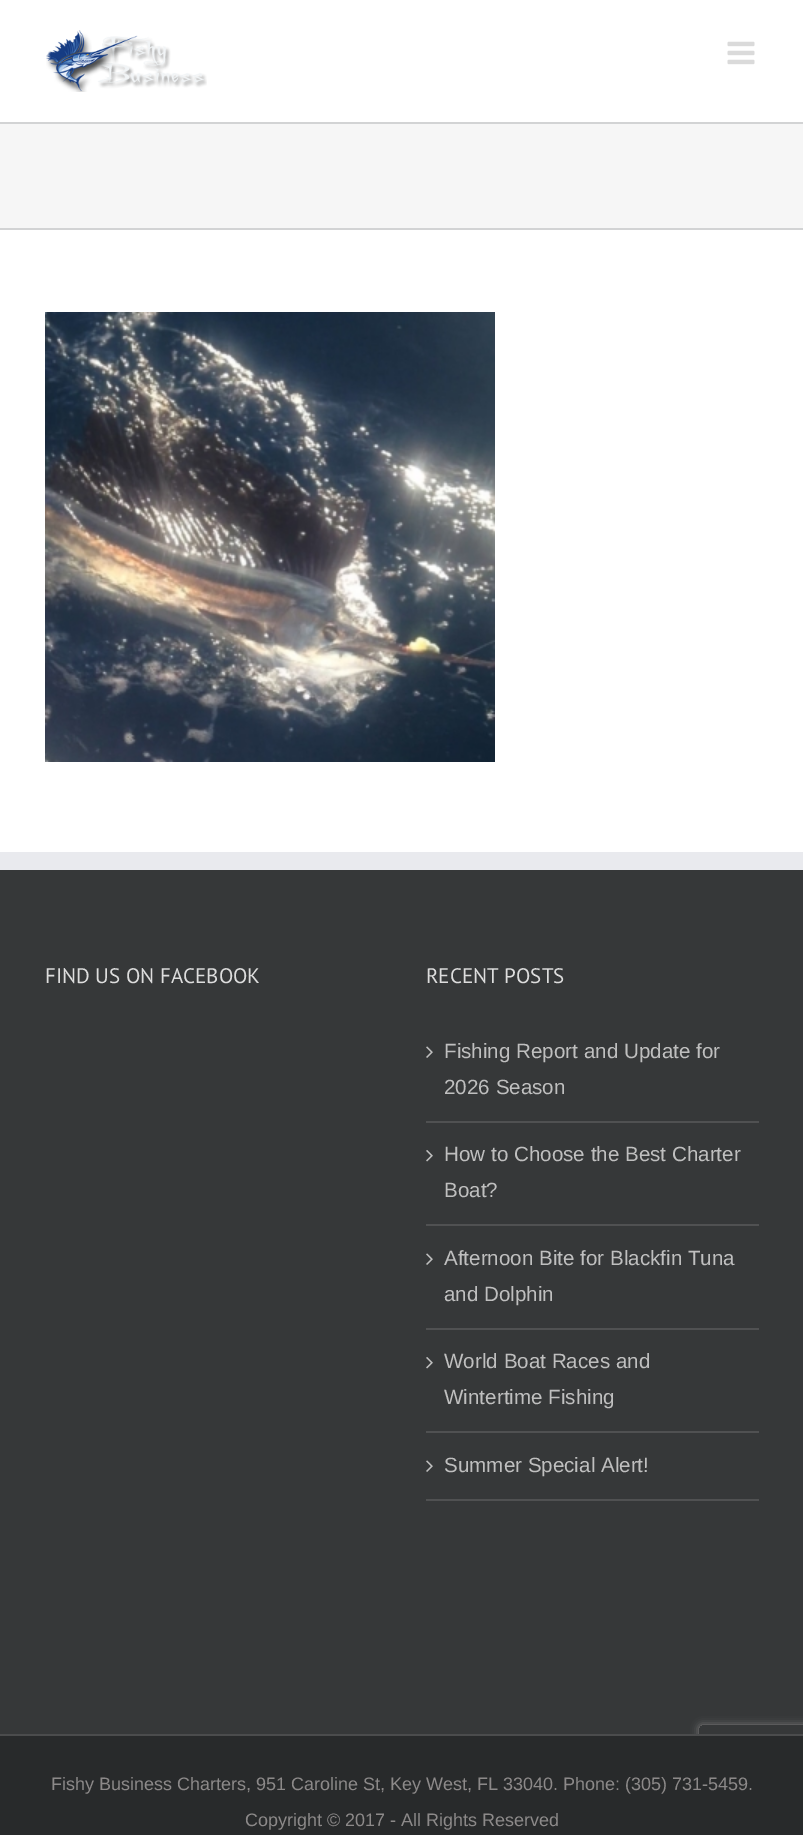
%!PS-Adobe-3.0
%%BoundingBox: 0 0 803 1835
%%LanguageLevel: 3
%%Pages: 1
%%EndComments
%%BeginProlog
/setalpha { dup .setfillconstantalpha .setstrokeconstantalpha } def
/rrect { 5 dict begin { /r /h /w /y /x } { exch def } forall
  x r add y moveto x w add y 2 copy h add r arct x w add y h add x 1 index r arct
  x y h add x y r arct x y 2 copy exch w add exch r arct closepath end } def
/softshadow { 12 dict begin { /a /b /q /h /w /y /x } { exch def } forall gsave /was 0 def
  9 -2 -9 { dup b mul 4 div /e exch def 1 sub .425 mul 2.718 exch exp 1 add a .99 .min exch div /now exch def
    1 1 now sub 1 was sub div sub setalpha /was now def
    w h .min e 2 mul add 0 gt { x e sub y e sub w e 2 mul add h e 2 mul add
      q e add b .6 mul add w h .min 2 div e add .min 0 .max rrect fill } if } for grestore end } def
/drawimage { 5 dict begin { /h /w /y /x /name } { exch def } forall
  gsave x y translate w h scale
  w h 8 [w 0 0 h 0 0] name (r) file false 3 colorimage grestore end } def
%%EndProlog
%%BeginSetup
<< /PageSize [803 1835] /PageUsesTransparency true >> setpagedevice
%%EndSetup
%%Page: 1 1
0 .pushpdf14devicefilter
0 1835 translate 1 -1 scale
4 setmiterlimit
1 setgray
0 0 803 1835 rectfill
(images/1.raw) 46 30 161 62 drawimage
(images/2.raw) 727 41 28 24 drawimage
0.965 setgray
0 124 803 104 rectfill
0.824 0.827 0.831 setrgbcolor
0 122 803 2 rectfill
0 228 803 2 rectfill
(images/3.raw) 45 312 450 450 drawimage
0.212 0.22 0.224 setrgbcolor
0 870 803 864 rectfill
0.914 0.918 0.933 setrgbcolor
0 852 803 18 rectfill
0.314 0.318 0.322 setrgbcolor
426 1121 333 2 rectfill
(images/4.raw) 426 1046 7 12 drawimage
426 1224 333 2 rectfill
(images/5.raw) 426 1150 7 12 drawimage
426 1328 333 2 rectfill
(images/4.raw) 426 1253 7 12 drawimage
426 1431 333 2 rectfill
(images/5.raw) 426 1357 7 12 drawimage
426 1499 333 2 rectfill
(images/4.raw) 426 1460 7 12 drawimage
gsave
newpath 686 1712 moveto 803 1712 lineto 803 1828 lineto 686 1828 lineto closepath 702 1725 moveto 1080 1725 lineto 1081.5 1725 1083 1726.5 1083 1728 curveto 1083 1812 lineto 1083 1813.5 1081.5 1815 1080 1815 curveto 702 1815 lineto 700.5 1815 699 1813.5 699 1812 curveto 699 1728 lineto 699 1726.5 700.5 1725 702 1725 curveto closepath eoclip newpath
0.502 setgray
699 1725 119 90 3 4 1 softshadow
grestore
0.157 0.165 0.169 setrgbcolor
0 1736 803 99 rectfill
0.294 0.298 0.302 setrgbcolor
0 1734 803 2 rectfill
/PTSans-Regular [21 0 0 -21 0 0] selectfont
0.867 setgray
45 983 moveto (FIND US ON FACEBOOK) show
426 983 moveto (RECENT POSTS) show
/LiberationSans-Regular [20.6 0 0 -20.6 0 0] selectfont
0.749 setgray
444 1058 moveto (Fishing Report and Update for) show
444 1094 moveto (2026 Season) show
444 1161 moveto (How to Choose the Best Charter) show
444 1197 moveto (Boat?) show
444 1265 moveto (Afternoon Bite for Blackfin Tuna) show
444 1301 moveto (and Dolphin) show
444 1368 moveto (World Boat Races and) show
444 1404 moveto (Wintertime Fishing) show
444 1472 moveto (Summer Special Alert!) show
/LiberationSans-Regular [18 0 0 -18 0 0] selectfont
0.549 0.537 0.537 setrgbcolor
51 1790 moveto (Fishy Business Charters, 951 Caroline St, Key West, FL 33040. Phone: \(305\) 731-5459.) show
245 1826 moveto (Copyright © 2017 - All Rights Reserved) show
.poppdf14devicefilter showpage
%%EOF
